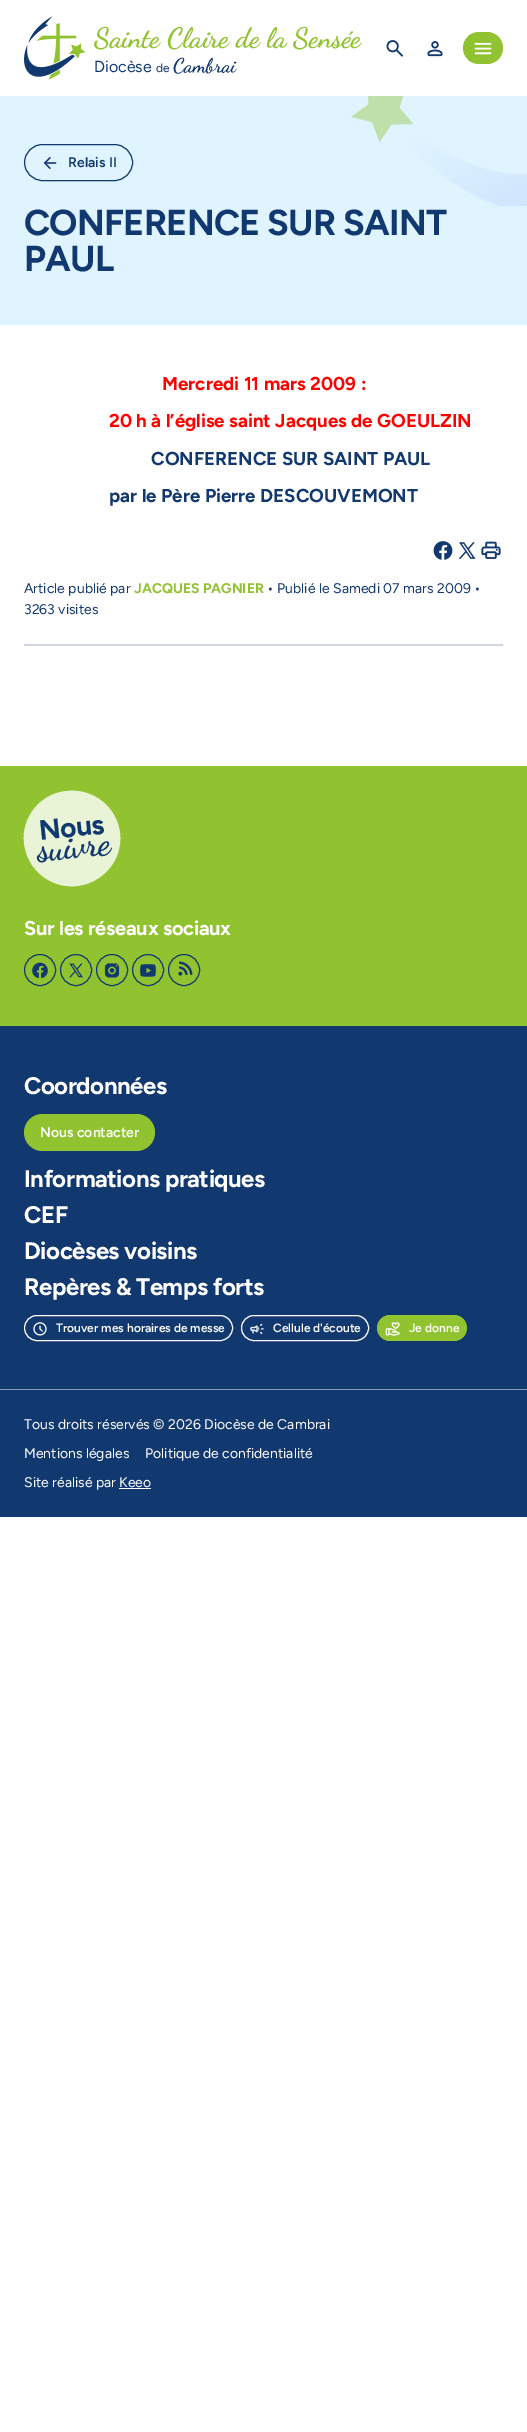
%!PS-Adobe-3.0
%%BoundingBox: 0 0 527 2432
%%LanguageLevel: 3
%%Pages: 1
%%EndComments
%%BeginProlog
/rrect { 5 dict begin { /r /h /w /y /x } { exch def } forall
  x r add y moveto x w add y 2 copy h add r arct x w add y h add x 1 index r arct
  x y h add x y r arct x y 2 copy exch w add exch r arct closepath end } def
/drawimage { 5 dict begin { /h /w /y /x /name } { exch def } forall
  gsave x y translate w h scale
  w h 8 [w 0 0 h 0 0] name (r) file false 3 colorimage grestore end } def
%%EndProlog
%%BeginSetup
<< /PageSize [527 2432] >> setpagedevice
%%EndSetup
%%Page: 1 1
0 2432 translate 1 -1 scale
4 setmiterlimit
1 setgray
0 0 527 2432 rectfill
(images/1.raw) 24 16 62 64 drawimage
(images/2.raw) 386 40 17 17 drawimage
(images/3.raw) 427 41 16 16 drawimage
0.569 0.761 0.184 setrgbcolor
463 32 40 32 16 rrect fill
(images/4.raw) 474 42 18 13 drawimage
0.878 0.957 1 setrgbcolor
0 96 527 229 rectfill
(images/5.raw) 351 96 176 110 drawimage
0.071 0.22 0.439 setrgbcolor
24.5 144.5 108 36 18 rrect stroke
(images/6.raw) 44 157 13 12 drawimage
(images/7.raw) 433 541 20 19 drawimage
(images/8.raw) 458 542 18 17 drawimage
(images/9.raw) 481 541 20 18 drawimage
0.816 0.843 0.886 setrgbcolor
24 644 479 2 rectfill
0.569 0.761 0.184 setrgbcolor
0 766 527 260 rectfill
0.914 0.953 0.835 setrgbcolor
newpath 67 791 moveto 93 788 117 807 120 833 curveto 123 860 103 883 77 886 curveto 51 889 27 870 24 843 curveto 21 817 41 793 67 791 curveto closepath fill
0.071 0.22 0.439 setrgbcolor
newpath 40 970 15.5 0 360 arc closepath stroke
(images/10.raw) 32 962 16 17 drawimage
newpath 76 970 15.5 0 360 arc closepath stroke
(images/11.raw) 69 963 14 15 drawimage
newpath 112 970 15.5 0 360 arc closepath stroke
(images/12.raw) 104 963 16 15 drawimage
newpath 148 970 15.5 0 360 arc closepath stroke
(images/13.raw) 140 964 16 13 drawimage
newpath 184 970 15.5 0 360 arc closepath stroke
(images/14.raw) 178 961 15 15 drawimage
0 1026 527 491 rectfill
0.569 0.761 0.184 setrgbcolor
24 1114 131 37 18.5 rrect fill
1 setgray
24.5 1315.5 208 25 12.5 rrect stroke
(images/15.raw) 33 1322 14 14 drawimage
241.5 1315.5 127 25 12.5 rrect stroke
(images/16.raw) 250 1323 14 11 drawimage
0.569 0.761 0.184 setrgbcolor
377 1315 90 26 13 rrect fill
(images/17.raw) 385 1322 15 14 drawimage
0.537 0.612 0.722 setrgbcolor
0 1389 527 1 rectfill
1 setgray
119 1488 32 1 rectfill
/DancingScript-Bold [28 0 0 -28 0 0] selectfont
0.569 0.761 0.184 setrgbcolor
94 47 moveto (Sainte Claire de la Sensée) show
/Figtree-Regular [16 0 0 -16 0 0] selectfont
0.071 0.22 0.439 setrgbcolor
94 72 moveto (Diocèse) show
/Figtree-Regular [12 0 0 -12 0 0] selectfont
156 72 moveto (de) show
/DancingScript-Bold [20 0 0 -20 0 0] selectfont
173 72 moveto (Cambrai) show
/Figtree-SemiBold [14 0 0 -14 0 0] selectfont
68 167 moveto (Relais II) show
/Figtree-Bold [36 0 0 -36 0 0] selectfont
24 235 moveto -0.75 0 (CONFERENCE SUR SAINT) ashow
24 271 moveto -0.75 0 (PAUL) ashow
/Figtree-Bold [18.7 0 0 -18.7 0 0] selectfont
1 0 0 setrgbcolor
162 390 moveto (Mercredi 11 mars 2009 :) show
109 427 moveto (20 h à l’église saint Jacques de GOEULZIN) show
0.071 0.22 0.439 setrgbcolor
151 465 moveto (CONFERENCE SUR SAINT PAUL) show
109 502 moveto (par le Père Pierre DESCOUVEMONT) show
/Figtree-Regular [14 0 0 -14 0 0] selectfont
24 593 moveto (Article publié par) show
/Figtree-Bold [14 0 0 -14 0 0] selectfont
0.569 0.761 0.184 setrgbcolor
134 593 moveto (JACQUES PAGNIER) show
/Figtree-Regular [14 0 0 -14 0 0] selectfont
0.071 0.22 0.439 setrgbcolor
267 593 moveto (• Publié le Samedi 07 mars 2009 •) show
24 614 moveto (3263 visites) show
/Figtree-Bold [28 0 0 -28 0 0] selectfont
gsave 40 840 translate -6 rotate 0 0 moveto -0.5 0 (Nous) ashow grestore
/DancingScript-Bold [36 0 0 -36 0 0] selectfont
gsave 38 861 translate -6 rotate 0 0 moveto -0.75 0 (suivre) ashow grestore
/Figtree-Bold [20 0 0 -20 0 0] selectfont
1 setgray
24 935 moveto -0.25 0 (Sur les réseaux sociaux) ashow
/Figtree-Bold [24 0 0 -24 0 0] selectfont
24 1094 moveto -0.5 0 (Coordonnées) ashow
/Figtree-SemiBold [14 0 0 -14 0 0] selectfont
40 1137 moveto (Nous contacter) show
/Figtree-Bold [24 0 0 -24 0 0] selectfont
24 1187 moveto -0.5 0 (Informations pratiques) ashow
24 1223 moveto -0.5 0 (CEF) ashow
24 1259 moveto -0.5 0 (Diocèses voisins) ashow
24 1295 moveto -0.5 0 (Repères & Temps forts) ashow
/Figtree-SemiBold [12 0 0 -12 0 0] selectfont
56 1332 moveto (Trouver mes horaires de messe) show
273 1332 moveto (Cellule d'écoute) show
409 1332 moveto (Je donne) show
/Figtree-Regular [14 0 0 -14 0 0] selectfont
24 1429 moveto (Tous droits réservés © 2026 Diocèse de Cambrai) show
24 1458 moveto (Mentions légales) show
145 1458 moveto (Politique de confidentialité) show
24 1487 moveto (Site réalisé par Keeo) show
showpage
%%EOF
